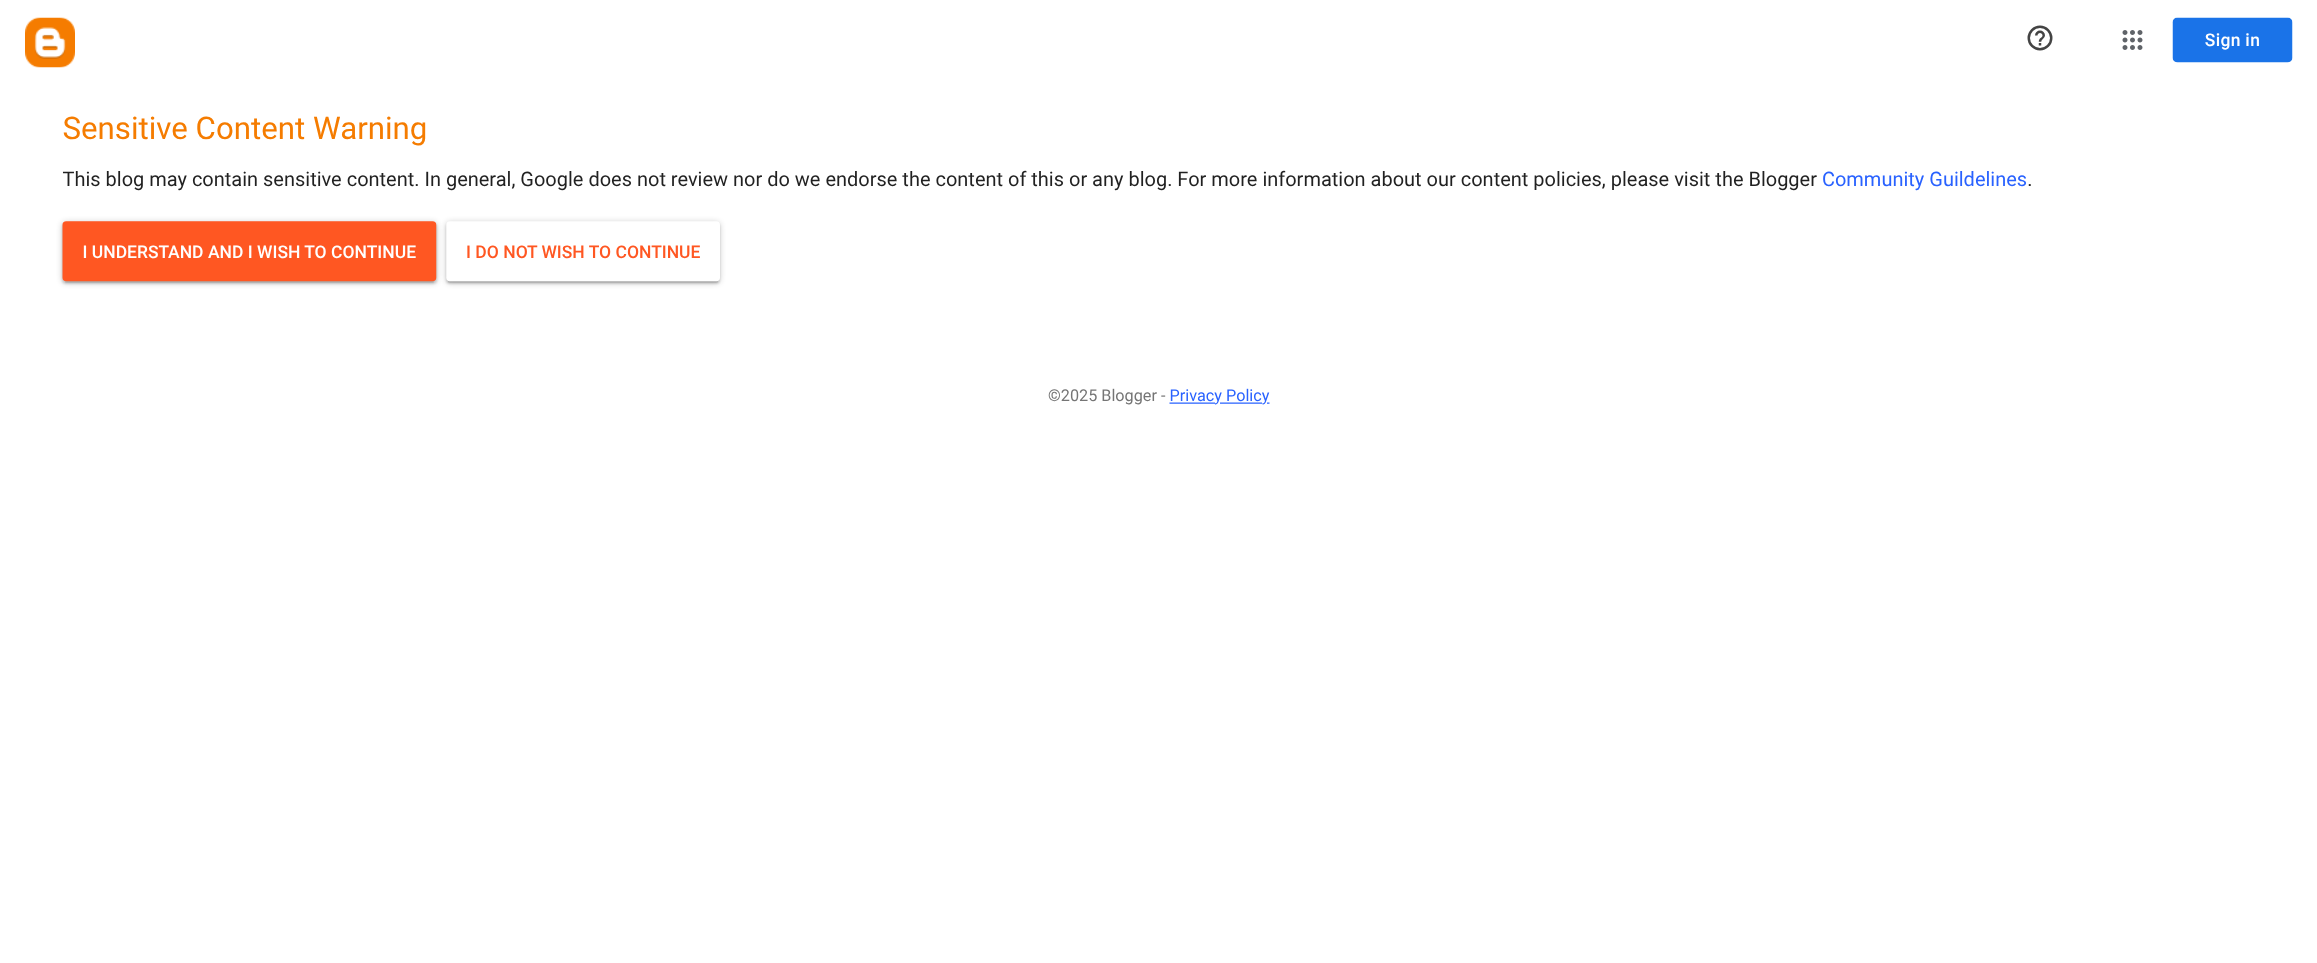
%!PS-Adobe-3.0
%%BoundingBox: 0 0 2317 963
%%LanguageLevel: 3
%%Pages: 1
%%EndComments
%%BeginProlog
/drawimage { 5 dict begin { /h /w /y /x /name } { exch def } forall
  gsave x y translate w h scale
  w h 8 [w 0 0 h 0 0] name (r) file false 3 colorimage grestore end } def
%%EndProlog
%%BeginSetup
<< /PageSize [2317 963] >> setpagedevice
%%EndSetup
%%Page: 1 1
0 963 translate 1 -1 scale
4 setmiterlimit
1 setgray
0 0 2317 963 rectfill
(images/1.raw) 25 17 2268 388 drawimage
showpage
%%EOF
